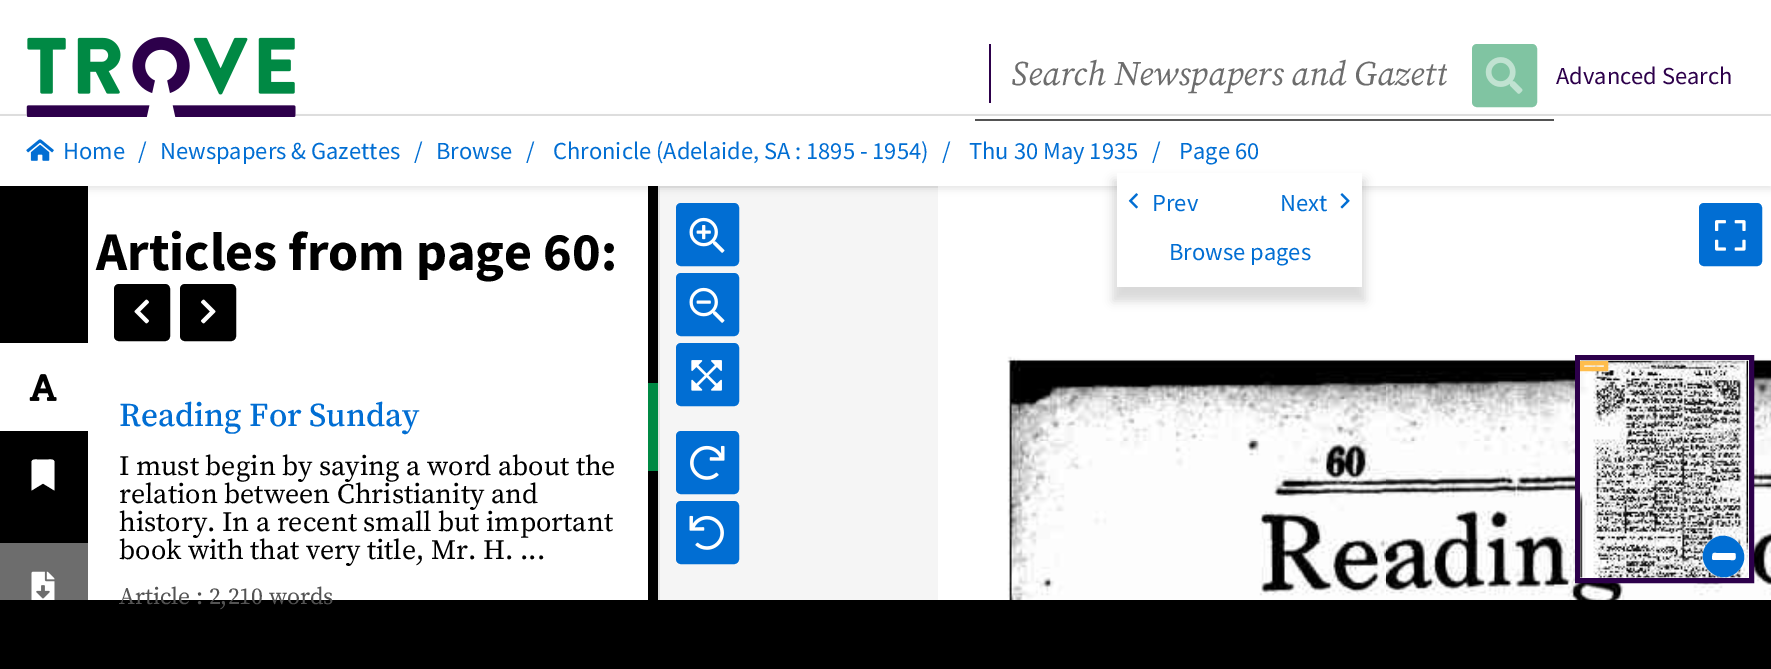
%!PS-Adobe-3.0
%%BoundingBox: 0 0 1771 669
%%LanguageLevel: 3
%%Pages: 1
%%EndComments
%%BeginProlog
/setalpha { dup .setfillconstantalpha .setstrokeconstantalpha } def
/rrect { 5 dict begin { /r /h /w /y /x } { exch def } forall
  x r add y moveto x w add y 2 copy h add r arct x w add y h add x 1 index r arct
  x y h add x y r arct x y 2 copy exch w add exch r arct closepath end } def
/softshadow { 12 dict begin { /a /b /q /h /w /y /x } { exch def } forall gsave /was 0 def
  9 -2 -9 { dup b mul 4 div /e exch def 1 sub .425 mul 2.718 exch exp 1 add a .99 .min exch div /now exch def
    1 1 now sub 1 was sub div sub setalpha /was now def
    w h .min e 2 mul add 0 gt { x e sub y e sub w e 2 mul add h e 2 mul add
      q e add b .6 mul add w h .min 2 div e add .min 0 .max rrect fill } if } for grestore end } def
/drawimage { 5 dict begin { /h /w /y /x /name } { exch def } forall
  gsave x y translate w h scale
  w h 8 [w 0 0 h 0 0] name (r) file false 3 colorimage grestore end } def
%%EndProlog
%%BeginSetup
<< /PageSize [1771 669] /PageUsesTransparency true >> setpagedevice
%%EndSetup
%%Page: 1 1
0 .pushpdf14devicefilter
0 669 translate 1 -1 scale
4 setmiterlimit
1 setgray
0 0 1771 669 rectfill
0 setgray
0 186 88 357 rectfill
648 186 10 414 rectfill
0.961 setgray
660 188 278 412 rectfill
0.914 setgray
660 186 278 2 rectfill
0.89 setgray
658 186 2 414 rectfill
(images/10.raw) 938 186 448 255 drawimage
(images/11.raw) 1386 186 385 255 drawimage
0 setgray
0 119 1771 70 0 3.5 0.1 softshadow
0.867 setgray
0 114 1771 2 rectfill
1 setgray
26 114 270 2 rectfill
0 116 1771 70 rectfill
(images/1.raw) 26 37 270 80 drawimage
0.176 0 0.294 setrgbcolor
989 44 2 59 rectfill
0.502 0.769 0.635 setrgbcolor
1474 46 61 59 3 rrect gsave fill grestore
4 setlinewidth
stroke
(images/2.raw) 1485 57 38 37 drawimage
0.325 setgray
975 119 579 2 rectfill
(images/3.raw) 26 139 28 22 drawimage
0 setgray
1113 180 252 121 0 5 0.15 softshadow
1 setgray
1117 173 245 114 rectfill
(images/4.raw) 1128 193 10 16 drawimage
(images/5.raw) 1340 193 10 16 drawimage
0 343 88 88 rectfill
(images/6.raw) 29 374 28 27 drawimage
newpath 31.5 490.5 moveto 31.5 462 lineto 32 459 35 459.5 37 459.5 curveto 48.5 459.5 lineto 51 459.5 54 459 54.5 462 curveto 54.5 490.5 lineto 43 483.5 lineto closepath fill
0.427 setgray
0 543 88 57 rectfill
(images/7.raw) 31 571 24 29 drawimage
0 setgray
116 286 52 53 3 rrect gsave fill grestore
stroke
(images/8.raw) 134 299 15 25 drawimage
182 286 52 53 3 rrect gsave fill grestore
stroke
(images/9.raw) 201 299 15 25 drawimage
0 0.537 0.267 setrgbcolor
648 383 10 88 rectfill
(images/12.raw) 938 441 448 159 drawimage
(images/13.raw) 1386 441 385 159 drawimage
0.004 0.431 0.827 setrgbcolor
678 205 59 59 3 rrect gsave fill grestore
stroke
(images/14.raw) 689 217 36 36 drawimage
1701 205 59 59 3 rrect gsave fill grestore
stroke
(images/15.raw) 1715 220 31 31 drawimage
678 275 59 59 3 rrect gsave fill grestore
stroke
(images/16.raw) 689 287 36 36 drawimage
678 345 59 59 3 rrect gsave fill grestore
stroke
(images/17.raw) 691 360 31 31 drawimage
1 setgray
newpath 1577.5 357.5 moveto 1751.5 357.5 lineto 1751.5 580.5 lineto 1577.5 580.5 lineto closepath gsave fill grestore
0.176 0 0.294 setrgbcolor
5 setlinewidth
stroke
(images/18.raw) 1580 360 169 218 drawimage
0.1 setalpha
1 0.741 0.298 setrgbcolor
newpath 1582 363 moveto 1606 363 lineto 1606 369 lineto 1582 369 lineto closepath fill
1 setalpha
4 setlinewidth
newpath 1582 363 moveto 1606 363 lineto 1606 369 lineto 1582 369 lineto closepath stroke
0.1 setalpha
1584 365 20 2 rectfill
1 setalpha
1 setgray
newpath 1709 542 moveto 1728 523 1757 552 1738 571 curveto 1719 590 1690 561 1709 542 curveto closepath fill
0.004 0.431 0.827 setrgbcolor
newpath 1709 542 moveto 1728 523 1757 552 1738 571 curveto 1719 590 1690 561 1709 542 curveto closepath 1713 560 moveto 1727 560 lineto 1732 560 1736 562 1736 557 curveto 1736 552 1736 553 1731 553 curveto 1720 553 lineto 1715 553 1712 551 1712 556 curveto 1712 557 1711 560 1713 560 curveto closepath fill
678 433 59 59 3 rrect gsave fill grestore
stroke
(images/19.raw) 690 445 35 35 drawimage
678 503 59 59 3 rrect gsave fill grestore
stroke
(images/20.raw) 689 515 35 35 drawimage
0 setgray
0 600 1771 69 rectfill
gsave
1012 51 435 47 rectclip
/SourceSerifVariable-Italic [34.25 0 0 -34.25 0 0] selectfont
0.427 setgray
1011 85 moveto (Search Newspapers and Gazett) show
grestore
/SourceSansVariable-Regular [24.5 0 0 -24.5 0 0] selectfont
0.176 0 0.294 setrgbcolor
1556 84 moveto (Advanced Search) show
0.004 0.431 0.827 setrgbcolor
63 159 moveto (Home) show
138 159 moveto (/) show
160 159 moveto (Newspapers & Gazettes) show
414 159 moveto (/) show
436 159 moveto (Browse) show
526 159 moveto (/) show
553 159 moveto (Chronicle \(Adelaide, SA : 1895 - 1954\)) show
942 159 moveto (/) show
969 159 moveto (Thu 30 May 1935) show
1152 159 moveto (/) show
1179 159 moveto (Page 60) show
1152 211 moveto (Prev) show
1280 211 moveto (Next) show
1169 260 moveto (Browse pages) show
/SourceSansVariable-Bold [54.25 0 0 -54.25 0 0] selectfont
0 setgray
96 270 moveto (Articles from page 60:) show
/SourceSerifVariable-Medium [33.25 0 0 -33.25 0 0] selectfont
0.004 0.431 0.827 setrgbcolor
119 426 moveto (Reading For Sunday) show
/SourceSerifVariable-Regular [28 0 0 -28 0 0] selectfont
0 setgray
119 475 moveto (I must begin by saying a word about the) show
119 503 moveto (relation between Christianity and) show
119 531 moveto (history. In a recent small but important) show
119 559 moveto (book with that very title, Mr. H. ...) show
/SourceSerifVariable-Regular [23.75 0 0 -23.75 0 0] selectfont
0.325 setgray
119 604 moveto (Article : 2,210 words) show
.poppdf14devicefilter showpage
%%EOF
